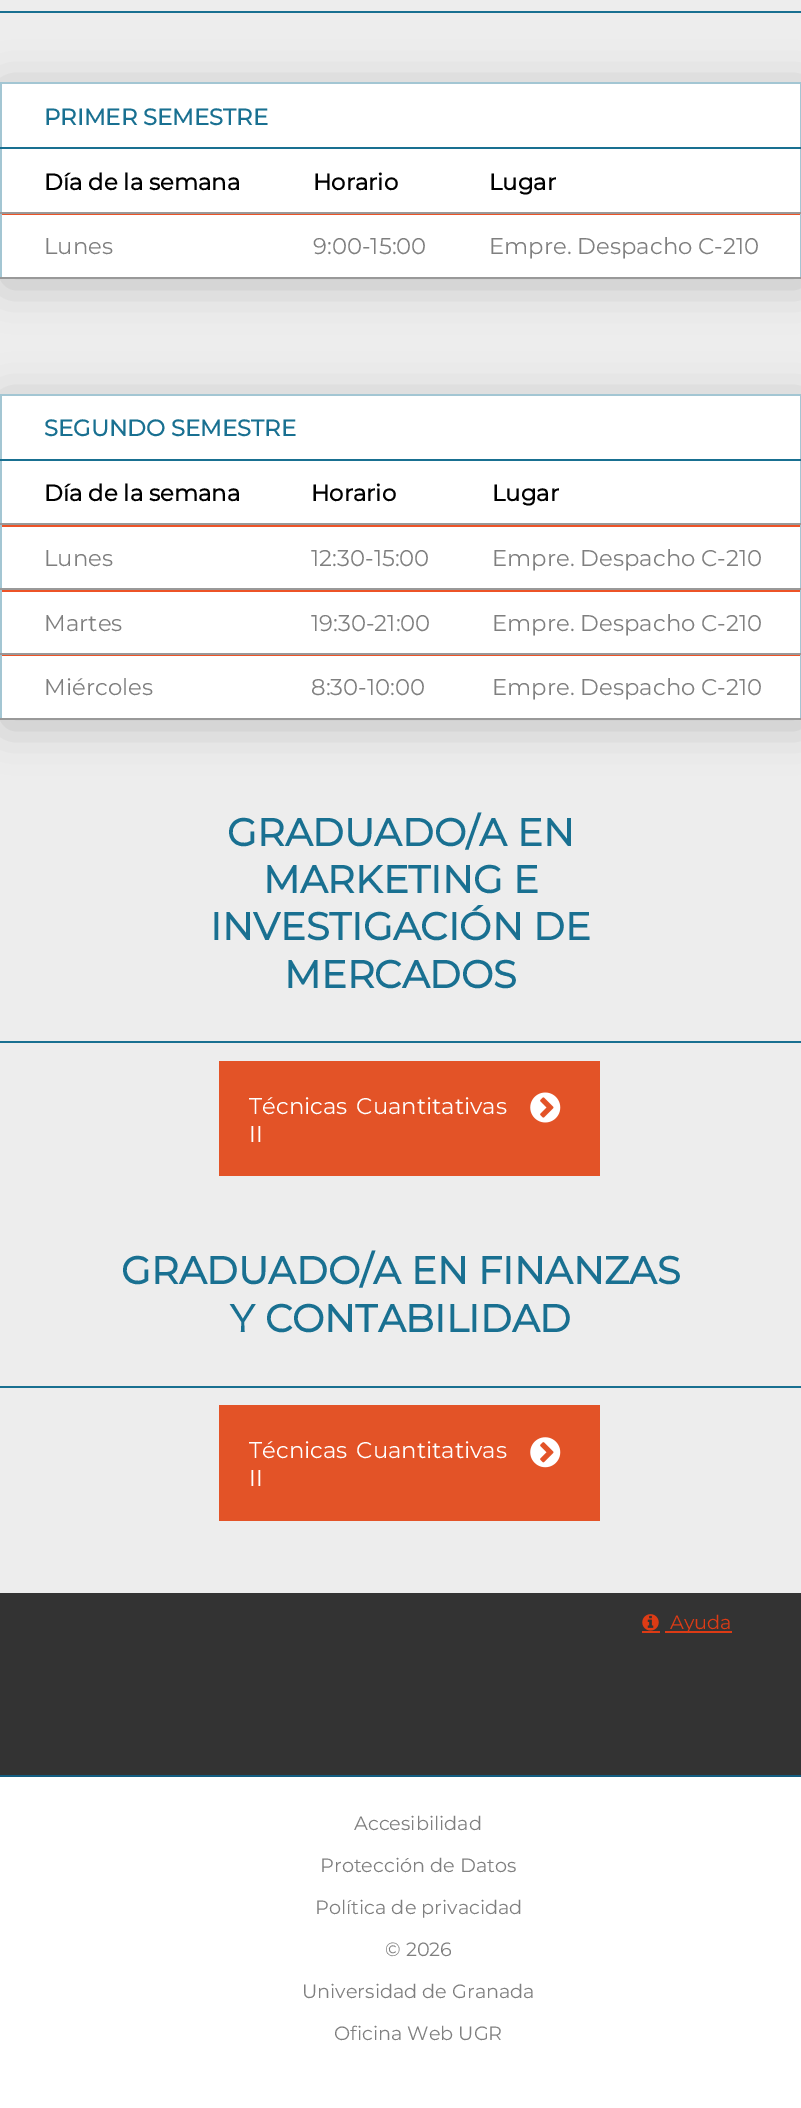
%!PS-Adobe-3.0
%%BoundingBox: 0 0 801 2108
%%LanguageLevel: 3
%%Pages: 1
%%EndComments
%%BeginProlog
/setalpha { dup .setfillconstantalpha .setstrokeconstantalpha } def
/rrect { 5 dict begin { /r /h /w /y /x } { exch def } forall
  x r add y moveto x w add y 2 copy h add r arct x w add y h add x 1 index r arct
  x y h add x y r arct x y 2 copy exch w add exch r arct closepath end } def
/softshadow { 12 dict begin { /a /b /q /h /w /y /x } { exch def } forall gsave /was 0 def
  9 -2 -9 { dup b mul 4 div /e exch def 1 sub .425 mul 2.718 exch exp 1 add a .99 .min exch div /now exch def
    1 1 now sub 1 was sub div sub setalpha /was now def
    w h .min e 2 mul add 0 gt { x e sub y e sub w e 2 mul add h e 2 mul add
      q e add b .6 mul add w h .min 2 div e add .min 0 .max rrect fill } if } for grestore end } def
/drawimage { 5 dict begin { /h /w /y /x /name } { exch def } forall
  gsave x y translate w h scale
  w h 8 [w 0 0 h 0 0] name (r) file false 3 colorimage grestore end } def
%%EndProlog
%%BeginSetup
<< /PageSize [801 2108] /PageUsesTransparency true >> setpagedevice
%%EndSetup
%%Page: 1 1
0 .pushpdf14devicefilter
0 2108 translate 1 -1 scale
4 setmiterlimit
1 setgray
0 0 801 2108 rectfill
0.2 setgray
0 1593 801 182 rectfill
0.071 0.361 0.502 setrgbcolor
0 1775 801 2 rectfill
0.929 setgray
0 0 801 1593 rectfill
0.098 0.439 0.569 setrgbcolor
0 11 801 2 rectfill
0.749 setgray
4 89 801 196 0 22 1 softshadow
0.929 0.325 0.153 setrgbcolor
2 214 798 1 rectfill
0.639 0.776 0.827 setrgbcolor
0 82 801 2 rectfill
800 82 1 196 rectfill
0 82 2 196 rectfill
1 setgray
2 84 798 63 rectfill
0.098 0.439 0.569 setrgbcolor
0 147 801 2 rectfill
1 setgray
2 149 798 63 rectfill
2 215 798 62 rectfill
0.6 setgray
0 212 801 2 rectfill
0 277 801 2 rectfill
0.749 setgray
4 401 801 325 0 22 1 softshadow
0.929 0.325 0.153 setrgbcolor
2 525 798 131 rectfill
0.639 0.776 0.827 setrgbcolor
0 394 801 2 rectfill
800 394 1 325 rectfill
0 394 2 325 rectfill
1 setgray
2 396 798 63 rectfill
0.098 0.439 0.569 setrgbcolor
0 459 801 2 rectfill
1 setgray
2 461 798 62 rectfill
2 527 798 61 rectfill
0.6 setgray
0 523 801 2 rectfill
1 setgray
2 592 798 61 rectfill
0.6 setgray
0 588 801 2 rectfill
1 setgray
2 656 798 62 rectfill
0.6 setgray
0 653 801 2 rectfill
0 718 801 2 rectfill
0.098 0.439 0.569 setrgbcolor
0 1041 801 2 rectfill
0.89 0.325 0.153 setrgbcolor
219 1061 381 115 rectfill
(images/1.raw) 530 1092 31 31 drawimage
0.098 0.439 0.569 setrgbcolor
0 1386 801 2 rectfill
0.89 0.325 0.153 setrgbcolor
219 1405 381 116 rectfill
(images/2.raw) 530 1437 31 31 drawimage
0.867 0.231 0.082 setrgbcolor
642 1631 18 2 rectfill
(images/3.raw) 642 1614 17 17 drawimage
665 1631 67 2 rectfill
/Montserrat-Bold [22.75 0 0 -22.75 0 0] selectfont
0.098 0.439 0.569 setrgbcolor
44 125 moveto (PRIMER SEMESTRE) show
0 setgray
44 190 moveto (Día de la semana) show
313 190 moveto (Horario) show
489 190 moveto (Lugar) show
/Montserrat-Thin [22.75 0 0 -22.75 0 0] selectfont
0.498 setgray
44 254 moveto (Lunes) show
313 254 moveto (9:00-15:00) show
489 254 moveto (Empre. Despacho C-210) show
/Montserrat-Bold [22.75 0 0 -22.75 0 0] selectfont
0.098 0.439 0.569 setrgbcolor
44 436 moveto (SEGUNDO SEMESTRE) show
0 setgray
44 501 moveto (Día de la semana) show
311 501 moveto (Horario) show
492 501 moveto (Lugar) show
/Montserrat-Thin [22.75 0 0 -22.75 0 0] selectfont
0.498 setgray
44 566 moveto (Lunes) show
311 566 moveto (12:30-15:00) show
492 566 moveto (Empre. Despacho C-210) show
44 631 moveto (Martes) show
311 631 moveto (19:30-21:00) show
492 631 moveto (Empre. Despacho C-210) show
44 695 moveto (Miércoles) show
311 695 moveto (8:30-10:00) show
492 695 moveto (Empre. Despacho C-210) show
/Montserrat-Bold [38.5 0 0 -38.5 0 0] selectfont
0.098 0.439 0.569 setrgbcolor
227 846 moveto (GRADUADO/A EN) show
263 893 moveto (MARKETING E) show
210 940 moveto (INVESTIGACIÓN DE) show
284 988 moveto (MERCADOS) show
/Montserrat-Thin [22.75 0 0 -22.75 0 0] selectfont
1 setgray
249 1114 moveto 3 0 32 (Técnicas Cuantitativas) widthshow
249 1142 moveto (II) show
/Montserrat-Bold [38.5 0 0 -38.5 0 0] selectfont
0.098 0.439 0.569 setrgbcolor
121 1284 moveto (GRADUADO/A EN FINANZAS) show
230 1332 moveto (Y CONTABILIDAD) show
/Montserrat-Thin [22.75 0 0 -22.75 0 0] selectfont
1 setgray
249 1458 moveto 3 0 32 (Técnicas Cuantitativas) widthshow
249 1486 moveto (II) show
/Montserrat-Thin [19.25 0 0 -19.25 0 0] selectfont
0.867 0.231 0.082 setrgbcolor
670 1629 moveto (Ayuda) show
0.498 setgray
354 1830 moveto (Accesibilidad) show
320 1872 moveto (Protección de Datos) show
315 1914 moveto (Política de privacidad) show
385 1956 moveto (© 2026) show
302 1998 moveto (Universidad de Granada) show
334 2040 moveto (Oficina Web UGR) show
.poppdf14devicefilter showpage
%%EOF
